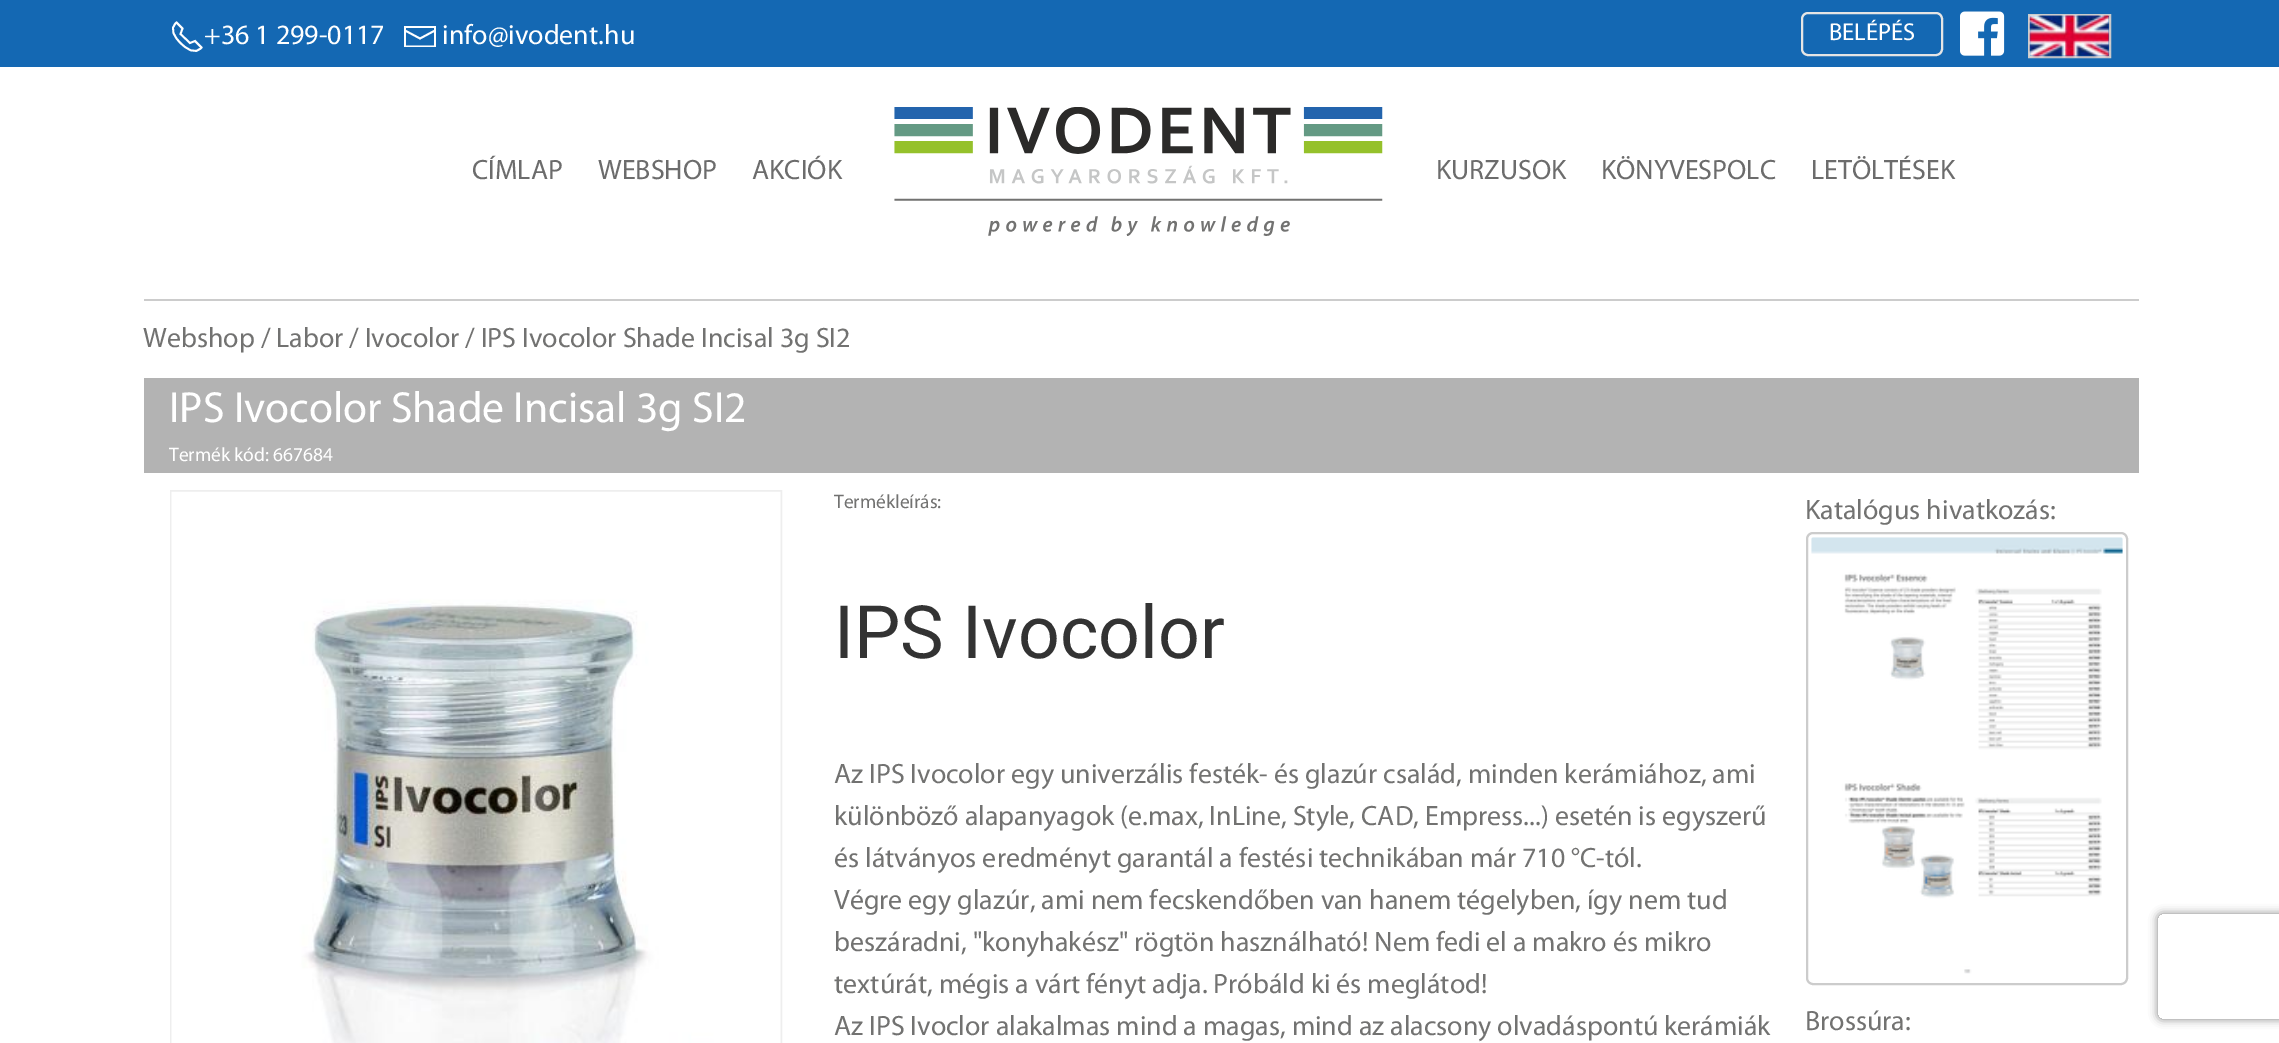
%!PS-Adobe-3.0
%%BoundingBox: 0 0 2279 1043
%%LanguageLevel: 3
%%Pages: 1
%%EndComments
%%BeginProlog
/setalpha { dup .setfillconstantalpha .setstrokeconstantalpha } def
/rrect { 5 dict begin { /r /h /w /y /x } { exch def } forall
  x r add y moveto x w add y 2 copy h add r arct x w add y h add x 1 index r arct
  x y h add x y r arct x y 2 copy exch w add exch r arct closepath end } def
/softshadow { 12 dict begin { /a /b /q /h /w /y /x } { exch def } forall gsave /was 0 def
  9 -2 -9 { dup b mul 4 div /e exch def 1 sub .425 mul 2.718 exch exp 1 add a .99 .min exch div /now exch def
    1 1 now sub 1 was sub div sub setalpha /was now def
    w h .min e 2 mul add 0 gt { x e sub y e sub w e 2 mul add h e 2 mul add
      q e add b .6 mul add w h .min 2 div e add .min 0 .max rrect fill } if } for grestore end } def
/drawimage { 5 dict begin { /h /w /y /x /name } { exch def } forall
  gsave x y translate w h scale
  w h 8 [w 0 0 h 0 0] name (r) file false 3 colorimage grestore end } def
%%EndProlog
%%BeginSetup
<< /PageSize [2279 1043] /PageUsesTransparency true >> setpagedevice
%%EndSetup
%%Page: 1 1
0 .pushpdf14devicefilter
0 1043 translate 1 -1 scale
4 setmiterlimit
1 setgray
0 0 2279 1043 rectfill
0.078 0.408 0.702 setrgbcolor
0 0 2279 67 rectfill
1 setgray
1.8 setlinewidth
newpath 180.5 43 moveto 186 48.5 195 55.5 201.5 47.5 curveto 195 41 lineto 190 43 lineto 180.5 34 lineto 182.5 28.5 lineto 176.5 22.5 lineto 168.5 29 175 37.5 180.5 43 curveto stroke
newpath 405 30.5 moveto 420 38.5 lineto 435 30.5 lineto stroke
newpath 404 26 moveto 404 47 lineto 436 47 lineto 436 26 lineto closepath 434 45.5 moveto 406 45.5 lineto 406 28 lineto 434 28 lineto closepath fill
0.898 setgray
2 setlinewidth
1802 13 140 42 6 rrect stroke
(images/1.raw) 1960 11 45 45 drawimage
0.8 setgray
2029 15 81 42 rectstroke
(images/2.raw) 2029 15 82 43 drawimage
(images/3.raw) 894 107 489 129 drawimage
144 299 1995 2 rectfill
0.702 setgray
144 378 1995 95 rectfill
0.933 setgray
171 491 610 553 rectstroke
(images/4.raw) 171 491 610 552 drawimage
0.8 setgray
1807 533 320 451 6 rrect stroke
(images/5.raw) 1811 537 312 437 drawimage
gsave
newpath 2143 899 moveto 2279 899 lineto 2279 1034 lineto 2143 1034 lineto closepath 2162 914 moveto 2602 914 lineto 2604 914 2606 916 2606 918 curveto 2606 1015 lineto 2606 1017 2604 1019 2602 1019 curveto 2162 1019 lineto 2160 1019 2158 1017 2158 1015 curveto 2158 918 lineto 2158 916 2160 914 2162 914 curveto closepath eoclip newpath
0.502 setgray
2158 914 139 105 4 4.5 1 softshadow
grestore
/Myriad-Regular [28 0 0 -28 0 0] selectfont
1 setgray
204 44 moveto (+36 1 299-0117) show
442 44 moveto (info@ivodent.hu) show
/Myriad-Regular [24.5 0 0 -24.5 0 0] selectfont
1829 40 moveto (BELÉPÉS) show
/Myriad-Regular [28 0 0 -28 0 0] selectfont
0.424 setgray
472 179 moveto (CÍMLAP) show
598 179 moveto (WEBSHOP) show
752 179 moveto (AKCIÓK) show
1436 179 moveto (KURZUSOK) show
1601 179 moveto (KÖNYVESPOLC) show
1811 179 moveto (LETÖLTÉSEK) show
0.447 0.447 0.443 setrgbcolor
143 347 moveto (Webshop / Labor / Ivocolor / IPS Ivocolor Shade Incisal 3g SI2) show
/Myriad-Regular [43.75 0 0 -43.75 0 0] selectfont
1 setgray
169 422 moveto (IPS Ivocolor Shade Incisal 3g SI2) show
/Myriad-Regular [19.5 0 0 -19.5 0 0] selectfont
169 461 moveto (Termék kód: 667684) show
0.447 0.447 0.443 setrgbcolor
834 508 moveto (Termékleírás:) show
/Roboto-Regular [73.5 0 0 -73.5 0 0] selectfont
0.2 setgray
834 658 moveto (IPS Ivocolor) show
/Myriad-Regular [28 0 0 -28 0 0] selectfont
0.447 0.447 0.443 setrgbcolor
834 783 moveto (Az IPS Ivocolor egy univerzális festék- és glazúr család, minden kerámiához, ami) show
834 825 moveto (különböző alapanyagok \(e.max, InLine, Style, CAD, Empress...\) esetén is egyszerű) show
834 867 moveto (és látványos eredményt garantál a festési technikában már 710 °C-tól.) show
834 909 moveto (Végre egy glazúr, ami nem fecskendőben van hanem tégelyben, így nem tud) show
834 951 moveto (beszáradni, "konyhakész" rögtön használható! Nem fedi el a makro és mikro) show
834 993 moveto (textúrát, mégis a várt fényt adja. Próbáld ki és meglátod!) show
834 1035 moveto (Az IPS Ivoclor alakalmas mind a magas, mind az alacsony olvadáspontú kerámiák) show
1805 519 moveto (Katalógus hivatkozás:) show
1805 1030 moveto (Brossúra:) show
.poppdf14devicefilter showpage
%%EOF
